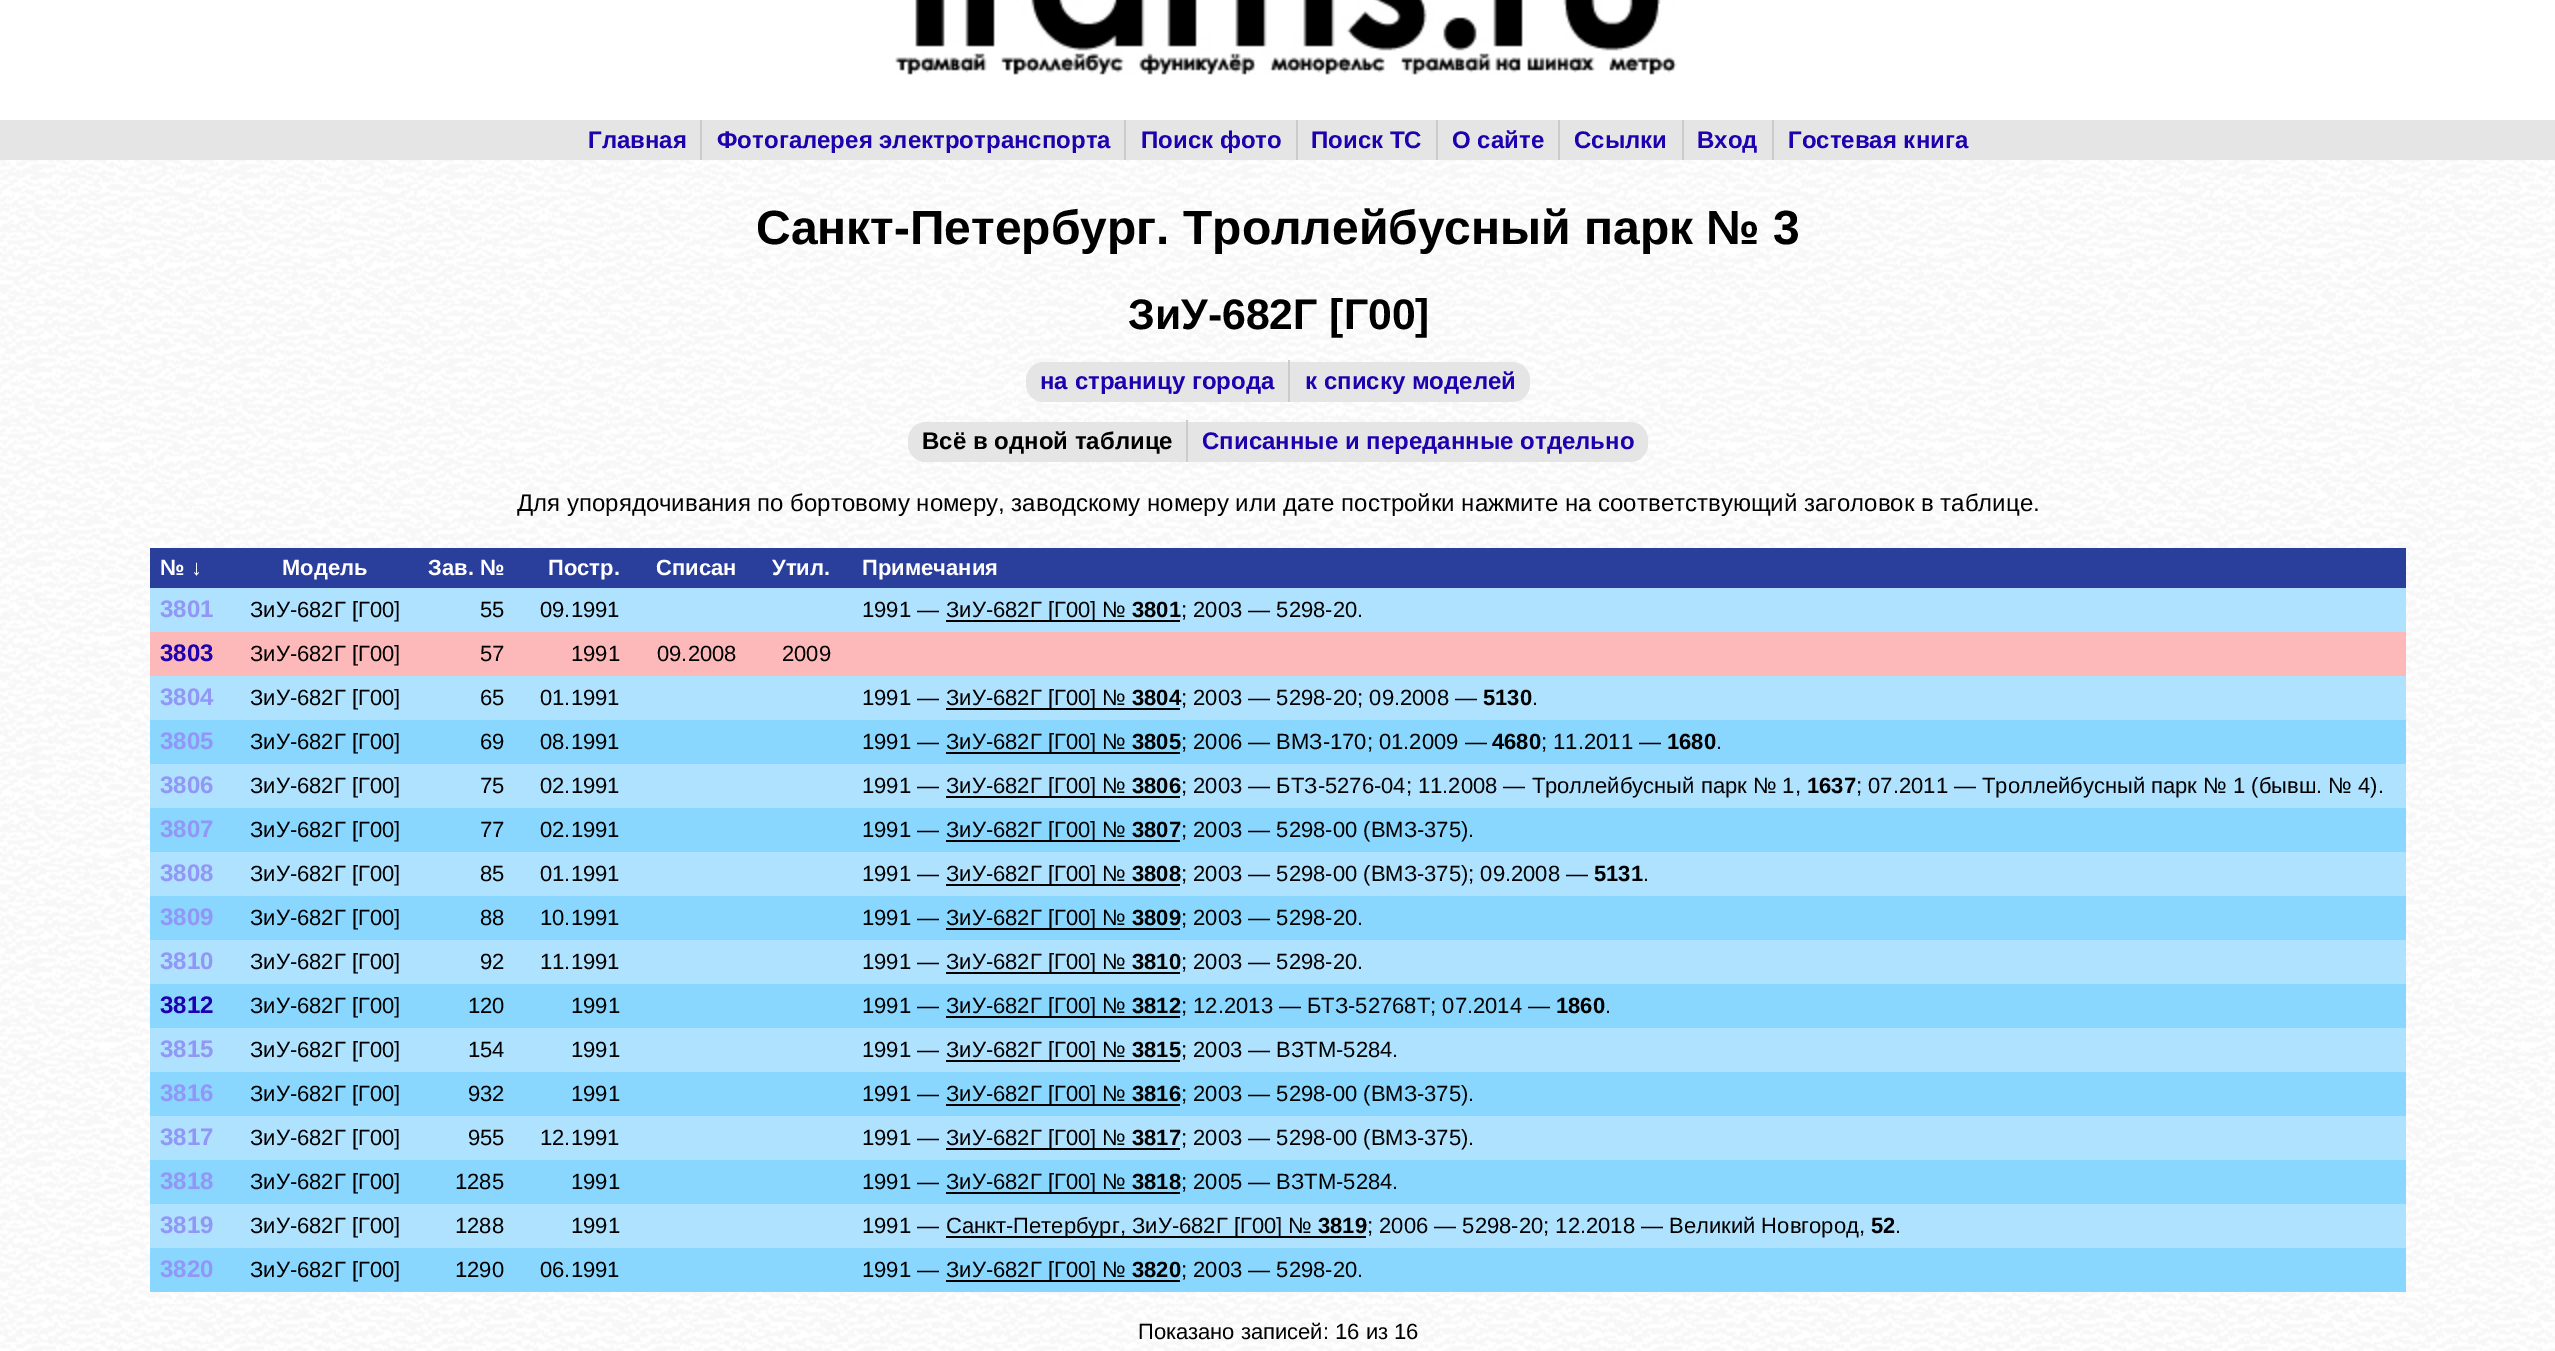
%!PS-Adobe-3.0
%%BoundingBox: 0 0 2555 1351
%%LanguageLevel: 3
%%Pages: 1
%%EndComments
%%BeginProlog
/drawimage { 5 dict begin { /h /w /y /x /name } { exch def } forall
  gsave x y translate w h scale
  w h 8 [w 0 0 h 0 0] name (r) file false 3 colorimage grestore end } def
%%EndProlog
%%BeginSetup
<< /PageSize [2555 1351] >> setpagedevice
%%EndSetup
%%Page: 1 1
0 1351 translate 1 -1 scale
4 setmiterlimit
1 setgray
0 0 2555 1351 rectfill
(images/1.raw) 895 0 782 75 drawimage
0.898 setgray
0 120 2555 40 rectfill
0.8 setgray
700 120 2 42 rectfill
1124 120 2 42 rectfill
1296 120 2 42 rectfill
1436 120 2 42 rectfill
1558 120 2 42 rectfill
1682 120 2 42 rectfill
1772 120 2 42 rectfill
(images/2.raw) 0 160 2555 1191 drawimage
0.898 setgray
newpath 1044 362 moveto 1290 362 lineto 1290 402 lineto 1044 402 lineto 1034 402 1026 394 1026 384 curveto 1026 380 lineto 1026 370 1034 362 1044 362 curveto closepath fill
newpath 1290 362 moveto 1512 362 lineto 1522 362 1530 370 1530 380 curveto 1530 384 lineto 1530 394 1522 402 1512 402 curveto 1290 402 lineto closepath fill
0.8 setgray
1288 360 2 42 rectfill
0.898 setgray
newpath 926 422 moveto 1188 422 lineto 1188 462 lineto 926 462 lineto 916 462 908 454 908 444 curveto 908 440 lineto 908 430 916 422 926 422 curveto closepath fill
newpath 1188 422 moveto 1630 422 lineto 1640 422 1648 430 1648 440 curveto 1648 444 lineto 1648 454 1640 462 1630 462 curveto 1188 462 lineto closepath fill
0.8 setgray
1186 420 2 42 rectfill
0.165 0.243 0.608 setrgbcolor
150 548 2256 40 rectfill
0.686 0.886 0.996 setrgbcolor
150 588 2256 44 rectfill
0 setgray
946 620 234 2 rectfill
0.992 0.725 0.725 setrgbcolor
150 632 2256 44 rectfill
0.686 0.886 0.996 setrgbcolor
150 676 2256 44 rectfill
0 setgray
946 708 234 2 rectfill
0.537 0.839 0.996 setrgbcolor
150 720 2256 44 rectfill
0 setgray
946 752 234 2 rectfill
0.686 0.886 0.996 setrgbcolor
150 764 2256 44 rectfill
0 setgray
946 796 234 2 rectfill
0.537 0.839 0.996 setrgbcolor
150 808 2256 44 rectfill
0 setgray
946 840 234 2 rectfill
0.686 0.886 0.996 setrgbcolor
150 852 2256 44 rectfill
0 setgray
946 884 234 2 rectfill
0.537 0.839 0.996 setrgbcolor
150 896 2256 44 rectfill
0 setgray
946 928 234 2 rectfill
0.686 0.886 0.996 setrgbcolor
150 940 2256 44 rectfill
0 setgray
946 972 234 2 rectfill
0.537 0.839 0.996 setrgbcolor
150 984 2256 44 rectfill
0 setgray
946 1016 234 2 rectfill
0.686 0.886 0.996 setrgbcolor
150 1028 2256 44 rectfill
0 setgray
946 1060 234 2 rectfill
0.537 0.839 0.996 setrgbcolor
150 1072 2256 44 rectfill
0 setgray
946 1104 234 2 rectfill
0.686 0.886 0.996 setrgbcolor
150 1116 2256 44 rectfill
0 setgray
946 1148 234 2 rectfill
0.537 0.839 0.996 setrgbcolor
150 1160 2256 44 rectfill
0 setgray
946 1192 234 2 rectfill
0.686 0.886 0.996 setrgbcolor
150 1204 2256 44 rectfill
0 setgray
946 1236 420 2 rectfill
0.537 0.839 0.996 setrgbcolor
150 1248 2256 44 rectfill
0 setgray
946 1280 234 2 rectfill
/LiberationSans-Bold [24 0 0 -24 0 0] selectfont
0.122 0 0.682 setrgbcolor
588 148 moveto (Главная) show
717 148 moveto (Фотогалерея электротранспорта) show
1141 148 moveto (Поиск фото) show
1311 148 moveto (Поиск ТС) show
1452 148 moveto (О сайте) show
1574 148 moveto (Ссылки) show
1697 148 moveto (Вход) show
1788 148 moveto (Гостевая книга) show
/LiberationSans-Bold [48 0 0 -48 0 0] selectfont
0 setgray
756 244 moveto (Санкт-Петербург. Троллейбусный парк № 3) show
/LiberationSans-Bold [42.75 0 0 -42.75 0 0] selectfont
1128 329 moveto (ЗиУ-682Г [Г00]) show
/LiberationSans-Bold [24 0 0 -24 0 0] selectfont
0.122 0 0.682 setrgbcolor
1040 389 moveto (на страницу города) show
1305 389 moveto (к списку моделей) show
0 setgray
922 449 moveto (Всё в одной таблице) show
0.122 0 0.682 setrgbcolor
1202 449 moveto (Списанные и переданные отдельно) show
/LiberationSans-Regular [24 0 0 -24 0 0] selectfont
0 setgray
517 511 moveto (Для упорядочивания по бортовому номеру, заводскому номеру или дате постройки нажмите на соответствующий заголовок в таблице.) show
/LiberationSans-Bold [22 0 0 -22 0 0] selectfont
1 setgray
160 575 moveto (№ ↓) show
282 575 moveto (Модель) show
428 575 moveto (Зав. №) show
548 575 moveto (Постр.) show
656 575 moveto (Списан) show
772 575 moveto (Утил.) show
862 575 moveto (Примечания) show
/LiberationSans-Bold [24 0 0 -24 0 0] selectfont
0.569 0.588 0.969 setrgbcolor
160 617 moveto (3801) show
/LiberationSans-Regular [22 0 0 -22 0 0] selectfont
0 setgray
250 617 moveto (ЗиУ-682Г [Г00]) show
480 617 moveto (55) show
540 617 moveto (09.1991) show
862 617 moveto (1991 —) show
946 617 moveto (ЗиУ-682Г [Г00] №) show
/LiberationSans-Bold [22 0 0 -22 0 0] selectfont
1132 617 moveto (3801) show
/LiberationSans-Regular [22 0 0 -22 0 0] selectfont
1181 617 moveto (; 2003 — 5298-20.) show
/LiberationSans-Bold [24 0 0 -24 0 0] selectfont
0.122 0 0.682 setrgbcolor
160 661 moveto (3803) show
/LiberationSans-Regular [22 0 0 -22 0 0] selectfont
0 setgray
250 661 moveto (ЗиУ-682Г [Г00]) show
480 661 moveto (57) show
571 661 moveto (1991) show
657 661 moveto (09.2008) show
782 661 moveto (2009) show
/LiberationSans-Bold [24 0 0 -24 0 0] selectfont
0.569 0.588 0.969 setrgbcolor
160 705 moveto (3804) show
/LiberationSans-Regular [22 0 0 -22 0 0] selectfont
0 setgray
250 705 moveto (ЗиУ-682Г [Г00]) show
480 705 moveto (65) show
540 705 moveto (01.1991) show
862 705 moveto (1991 —) show
946 705 moveto (ЗиУ-682Г [Г00] №) show
/LiberationSans-Bold [22 0 0 -22 0 0] selectfont
1132 705 moveto (3804) show
/LiberationSans-Regular [22 0 0 -22 0 0] selectfont
1181 705 moveto (; 2003 — 5298-20; 09.2008 —) show
/LiberationSans-Bold [22 0 0 -22 0 0] selectfont
1483 705 moveto (5130) show
/LiberationSans-Regular [22 0 0 -22 0 0] selectfont
1532 705 moveto (.) show
/LiberationSans-Bold [24 0 0 -24 0 0] selectfont
0.569 0.588 0.969 setrgbcolor
160 749 moveto (3805) show
/LiberationSans-Regular [22 0 0 -22 0 0] selectfont
0 setgray
250 749 moveto (ЗиУ-682Г [Г00]) show
480 749 moveto (69) show
540 749 moveto (08.1991) show
862 749 moveto (1991 —) show
946 749 moveto (ЗиУ-682Г [Г00] №) show
/LiberationSans-Bold [22 0 0 -22 0 0] selectfont
1132 749 moveto (3805) show
/LiberationSans-Regular [22 0 0 -22 0 0] selectfont
1181 749 moveto (; 2006 — ВМЗ-170; 01.2009 —) show
/LiberationSans-Bold [22 0 0 -22 0 0] selectfont
1492 749 moveto (4680) show
/LiberationSans-Regular [22 0 0 -22 0 0] selectfont
1541 749 moveto (; 11.2011 —) show
/LiberationSans-Bold [22 0 0 -22 0 0] selectfont
1667 749 moveto (1680) show
/LiberationSans-Regular [22 0 0 -22 0 0] selectfont
1716 749 moveto (.) show
/LiberationSans-Bold [24 0 0 -24 0 0] selectfont
0.569 0.588 0.969 setrgbcolor
160 793 moveto (3806) show
/LiberationSans-Regular [22 0 0 -22 0 0] selectfont
0 setgray
250 793 moveto (ЗиУ-682Г [Г00]) show
480 793 moveto (75) show
540 793 moveto (02.1991) show
862 793 moveto (1991 —) show
946 793 moveto (ЗиУ-682Г [Г00] №) show
/LiberationSans-Bold [22 0 0 -22 0 0] selectfont
1132 793 moveto (3806) show
/LiberationSans-Regular [22 0 0 -22 0 0] selectfont
1181 793 moveto (; 2003 — БТЗ-5276-04; 11.2008 — Троллейбусный парк № 1,) show
/LiberationSans-Bold [22 0 0 -22 0 0] selectfont
1807 793 moveto (1637) show
/LiberationSans-Regular [22 0 0 -22 0 0] selectfont
1856 793 moveto (; 07.2011 — Троллейбусный парк № 1 \(бывш. № 4\).) show
/LiberationSans-Bold [24 0 0 -24 0 0] selectfont
0.569 0.588 0.969 setrgbcolor
160 837 moveto (3807) show
/LiberationSans-Regular [22 0 0 -22 0 0] selectfont
0 setgray
250 837 moveto (ЗиУ-682Г [Г00]) show
480 837 moveto (77) show
540 837 moveto (02.1991) show
862 837 moveto (1991 —) show
946 837 moveto (ЗиУ-682Г [Г00] №) show
/LiberationSans-Bold [22 0 0 -22 0 0] selectfont
1132 837 moveto (3807) show
/LiberationSans-Regular [22 0 0 -22 0 0] selectfont
1181 837 moveto (; 2003 — 5298-00 \(ВМЗ-375\).) show
/LiberationSans-Bold [24 0 0 -24 0 0] selectfont
0.569 0.588 0.969 setrgbcolor
160 881 moveto (3808) show
/LiberationSans-Regular [22 0 0 -22 0 0] selectfont
0 setgray
250 881 moveto (ЗиУ-682Г [Г00]) show
480 881 moveto (85) show
540 881 moveto (01.1991) show
862 881 moveto (1991 —) show
946 881 moveto (ЗиУ-682Г [Г00] №) show
/LiberationSans-Bold [22 0 0 -22 0 0] selectfont
1132 881 moveto (3808) show
/LiberationSans-Regular [22 0 0 -22 0 0] selectfont
1181 881 moveto (; 2003 — 5298-00 \(ВМЗ-375\); 09.2008 —) show
/LiberationSans-Bold [22 0 0 -22 0 0] selectfont
1594 881 moveto (5131) show
/LiberationSans-Regular [22 0 0 -22 0 0] selectfont
1643 881 moveto (.) show
/LiberationSans-Bold [24 0 0 -24 0 0] selectfont
0.569 0.588 0.969 setrgbcolor
160 925 moveto (3809) show
/LiberationSans-Regular [22 0 0 -22 0 0] selectfont
0 setgray
250 925 moveto (ЗиУ-682Г [Г00]) show
480 925 moveto (88) show
540 925 moveto (10.1991) show
862 925 moveto (1991 —) show
946 925 moveto (ЗиУ-682Г [Г00] №) show
/LiberationSans-Bold [22 0 0 -22 0 0] selectfont
1132 925 moveto (3809) show
/LiberationSans-Regular [22 0 0 -22 0 0] selectfont
1181 925 moveto (; 2003 — 5298-20.) show
/LiberationSans-Bold [24 0 0 -24 0 0] selectfont
0.569 0.588 0.969 setrgbcolor
160 969 moveto (3810) show
/LiberationSans-Regular [22 0 0 -22 0 0] selectfont
0 setgray
250 969 moveto (ЗиУ-682Г [Г00]) show
480 969 moveto (92) show
540 969 moveto (11.1991) show
862 969 moveto (1991 —) show
946 969 moveto (ЗиУ-682Г [Г00] №) show
/LiberationSans-Bold [22 0 0 -22 0 0] selectfont
1132 969 moveto (3810) show
/LiberationSans-Regular [22 0 0 -22 0 0] selectfont
1181 969 moveto (; 2003 — 5298-20.) show
/LiberationSans-Bold [24 0 0 -24 0 0] selectfont
0.122 0 0.682 setrgbcolor
160 1013 moveto (3812) show
/LiberationSans-Regular [22 0 0 -22 0 0] selectfont
0 setgray
250 1013 moveto (ЗиУ-682Г [Г00]) show
468 1013 moveto (120) show
571 1013 moveto (1991) show
862 1013 moveto (1991 —) show
946 1013 moveto (ЗиУ-682Г [Г00] №) show
/LiberationSans-Bold [22 0 0 -22 0 0] selectfont
1132 1013 moveto (3812) show
/LiberationSans-Regular [22 0 0 -22 0 0] selectfont
1181 1013 moveto (; 12.2013 — БТЗ-52768Т; 07.2014 —) show
/LiberationSans-Bold [22 0 0 -22 0 0] selectfont
1556 1013 moveto (1860) show
/LiberationSans-Regular [22 0 0 -22 0 0] selectfont
1605 1013 moveto (.) show
/LiberationSans-Bold [24 0 0 -24 0 0] selectfont
0.569 0.588 0.969 setrgbcolor
160 1057 moveto (3815) show
/LiberationSans-Regular [22 0 0 -22 0 0] selectfont
0 setgray
250 1057 moveto (ЗиУ-682Г [Г00]) show
468 1057 moveto (154) show
571 1057 moveto (1991) show
862 1057 moveto (1991 —) show
946 1057 moveto (ЗиУ-682Г [Г00] №) show
/LiberationSans-Bold [22 0 0 -22 0 0] selectfont
1132 1057 moveto (3815) show
/LiberationSans-Regular [22 0 0 -22 0 0] selectfont
1181 1057 moveto (; 2003 — ВЗТМ-5284.) show
/LiberationSans-Bold [24 0 0 -24 0 0] selectfont
0.569 0.588 0.969 setrgbcolor
160 1101 moveto (3816) show
/LiberationSans-Regular [22 0 0 -22 0 0] selectfont
0 setgray
250 1101 moveto (ЗиУ-682Г [Г00]) show
468 1101 moveto (932) show
571 1101 moveto (1991) show
862 1101 moveto (1991 —) show
946 1101 moveto (ЗиУ-682Г [Г00] №) show
/LiberationSans-Bold [22 0 0 -22 0 0] selectfont
1132 1101 moveto (3816) show
/LiberationSans-Regular [22 0 0 -22 0 0] selectfont
1181 1101 moveto (; 2003 — 5298-00 \(ВМЗ-375\).) show
/LiberationSans-Bold [24 0 0 -24 0 0] selectfont
0.569 0.588 0.969 setrgbcolor
160 1145 moveto (3817) show
/LiberationSans-Regular [22 0 0 -22 0 0] selectfont
0 setgray
250 1145 moveto (ЗиУ-682Г [Г00]) show
468 1145 moveto (955) show
540 1145 moveto (12.1991) show
862 1145 moveto (1991 —) show
946 1145 moveto (ЗиУ-682Г [Г00] №) show
/LiberationSans-Bold [22 0 0 -22 0 0] selectfont
1132 1145 moveto (3817) show
/LiberationSans-Regular [22 0 0 -22 0 0] selectfont
1181 1145 moveto (; 2003 — 5298-00 \(ВМЗ-375\).) show
/LiberationSans-Bold [24 0 0 -24 0 0] selectfont
0.569 0.588 0.969 setrgbcolor
160 1189 moveto (3818) show
/LiberationSans-Regular [22 0 0 -22 0 0] selectfont
0 setgray
250 1189 moveto (ЗиУ-682Г [Г00]) show
455 1189 moveto (1285) show
571 1189 moveto (1991) show
862 1189 moveto (1991 —) show
946 1189 moveto (ЗиУ-682Г [Г00] №) show
/LiberationSans-Bold [22 0 0 -22 0 0] selectfont
1132 1189 moveto (3818) show
/LiberationSans-Regular [22 0 0 -22 0 0] selectfont
1181 1189 moveto (; 2005 — ВЗТМ-5284.) show
/LiberationSans-Bold [24 0 0 -24 0 0] selectfont
0.569 0.588 0.969 setrgbcolor
160 1233 moveto (3819) show
/LiberationSans-Regular [22 0 0 -22 0 0] selectfont
0 setgray
250 1233 moveto (ЗиУ-682Г [Г00]) show
455 1233 moveto (1288) show
571 1233 moveto (1991) show
862 1233 moveto (1991 —) show
946 1233 moveto (Санкт-Петербург, ЗиУ-682Г [Г00] №) show
/LiberationSans-Bold [22 0 0 -22 0 0] selectfont
1318 1233 moveto (3819) show
/LiberationSans-Regular [22 0 0 -22 0 0] selectfont
1367 1233 moveto (; 2006 — 5298-20; 12.2018 — Великий Новгород,) show
/LiberationSans-Bold [22 0 0 -22 0 0] selectfont
1871 1233 moveto (52) show
/LiberationSans-Regular [22 0 0 -22 0 0] selectfont
1895 1233 moveto (.) show
/LiberationSans-Bold [24 0 0 -24 0 0] selectfont
0.569 0.588 0.969 setrgbcolor
160 1277 moveto (3820) show
/LiberationSans-Regular [22 0 0 -22 0 0] selectfont
0 setgray
250 1277 moveto (ЗиУ-682Г [Г00]) show
455 1277 moveto (1290) show
540 1277 moveto (06.1991) show
862 1277 moveto (1991 —) show
946 1277 moveto (ЗиУ-682Г [Г00] №) show
/LiberationSans-Bold [22 0 0 -22 0 0] selectfont
1132 1277 moveto (3820) show
/LiberationSans-Regular [22 0 0 -22 0 0] selectfont
1181 1277 moveto (; 2003 — 5298-20.) show
1138 1339 moveto (Показано записей: 16 из 16) show
showpage
%%EOF
